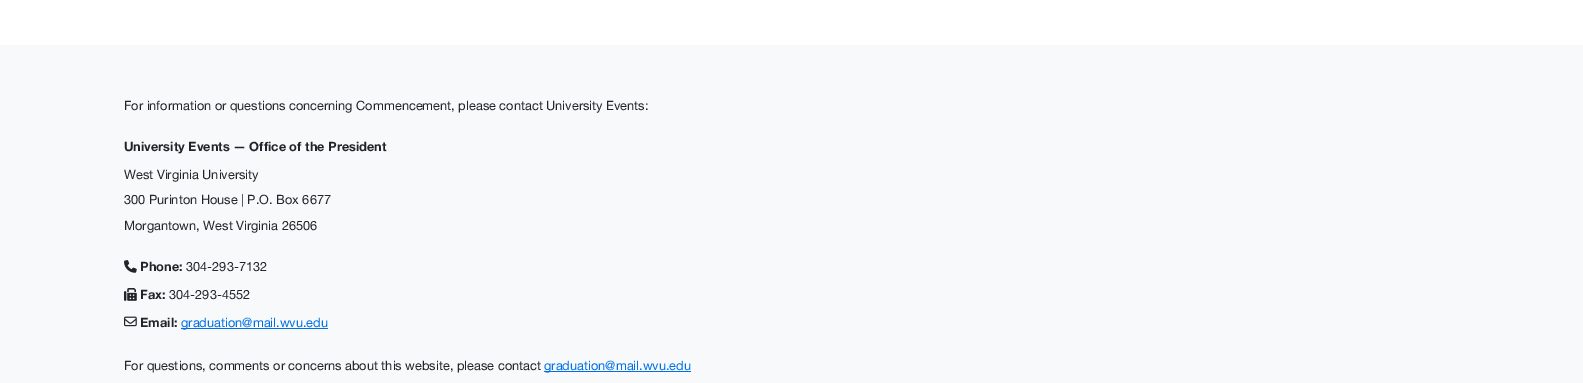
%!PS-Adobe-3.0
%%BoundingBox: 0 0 1583 383
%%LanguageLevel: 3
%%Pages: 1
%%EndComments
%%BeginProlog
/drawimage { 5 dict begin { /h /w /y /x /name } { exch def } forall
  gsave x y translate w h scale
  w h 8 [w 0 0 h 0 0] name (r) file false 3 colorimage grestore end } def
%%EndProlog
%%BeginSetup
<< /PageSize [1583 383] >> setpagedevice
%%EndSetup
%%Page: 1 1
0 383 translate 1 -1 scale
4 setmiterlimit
1 setgray
0 0 1583 383 rectfill
0.973 0.976 0.98 setrgbcolor
0 45 1583 338 rectfill
(images/1.raw) 124 260 13 13 drawimage
(images/2.raw) 124 288 13 13 drawimage
(images/3.raw) 124 316 13 11 drawimage
0 0.435 0.902 setrgbcolor
181 328 147 1 rectfill
544 371 147 1 rectfill
/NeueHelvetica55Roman-Regular [12.8 0 0 -12.8 0 0] selectfont
0.129 0.145 0.161 setrgbcolor
124 110 moveto (For information or questions concerning Commencement, please contact University Events:) show
/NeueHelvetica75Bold-Bold [12.8 0 0 -12.8 0 0] selectfont
124 151 moveto (University Events — Office of the President) show
/NeueHelvetica55Roman-Regular [12.8 0 0 -12.8 0 0] selectfont
124 179 moveto (West Virginia University) show
124 204 moveto (300 Purinton House | P.O. Box 6677) show
124 230 moveto (Morgantown, West Virginia 26506) show
/NeueHelvetica75Bold-Bold [12.8 0 0 -12.8 0 0] selectfont
140 271 moveto (Phone:) show
/NeueHelvetica55Roman-Regular [12.8 0 0 -12.8 0 0] selectfont
186 271 moveto (304-293-7132) show
/NeueHelvetica75Bold-Bold [12.8 0 0 -12.8 0 0] selectfont
140 299 moveto (Fax:) show
/NeueHelvetica55Roman-Regular [12.8 0 0 -12.8 0 0] selectfont
169 299 moveto (304-293-4552) show
/NeueHelvetica75Bold-Bold [12.8 0 0 -12.8 0 0] selectfont
140 327 moveto (Email:) show
/NeueHelvetica55Roman-Regular [12.8 0 0 -12.8 0 0] selectfont
0 0.435 0.902 setrgbcolor
181 327 moveto (graduation@mail.wvu.edu) show
0.129 0.145 0.161 setrgbcolor
124 370 moveto (For questions, comments or concerns about this website, please contact) show
0 0.435 0.902 setrgbcolor
544 370 moveto (graduation@mail.wvu.edu) show
showpage
%%EOF
